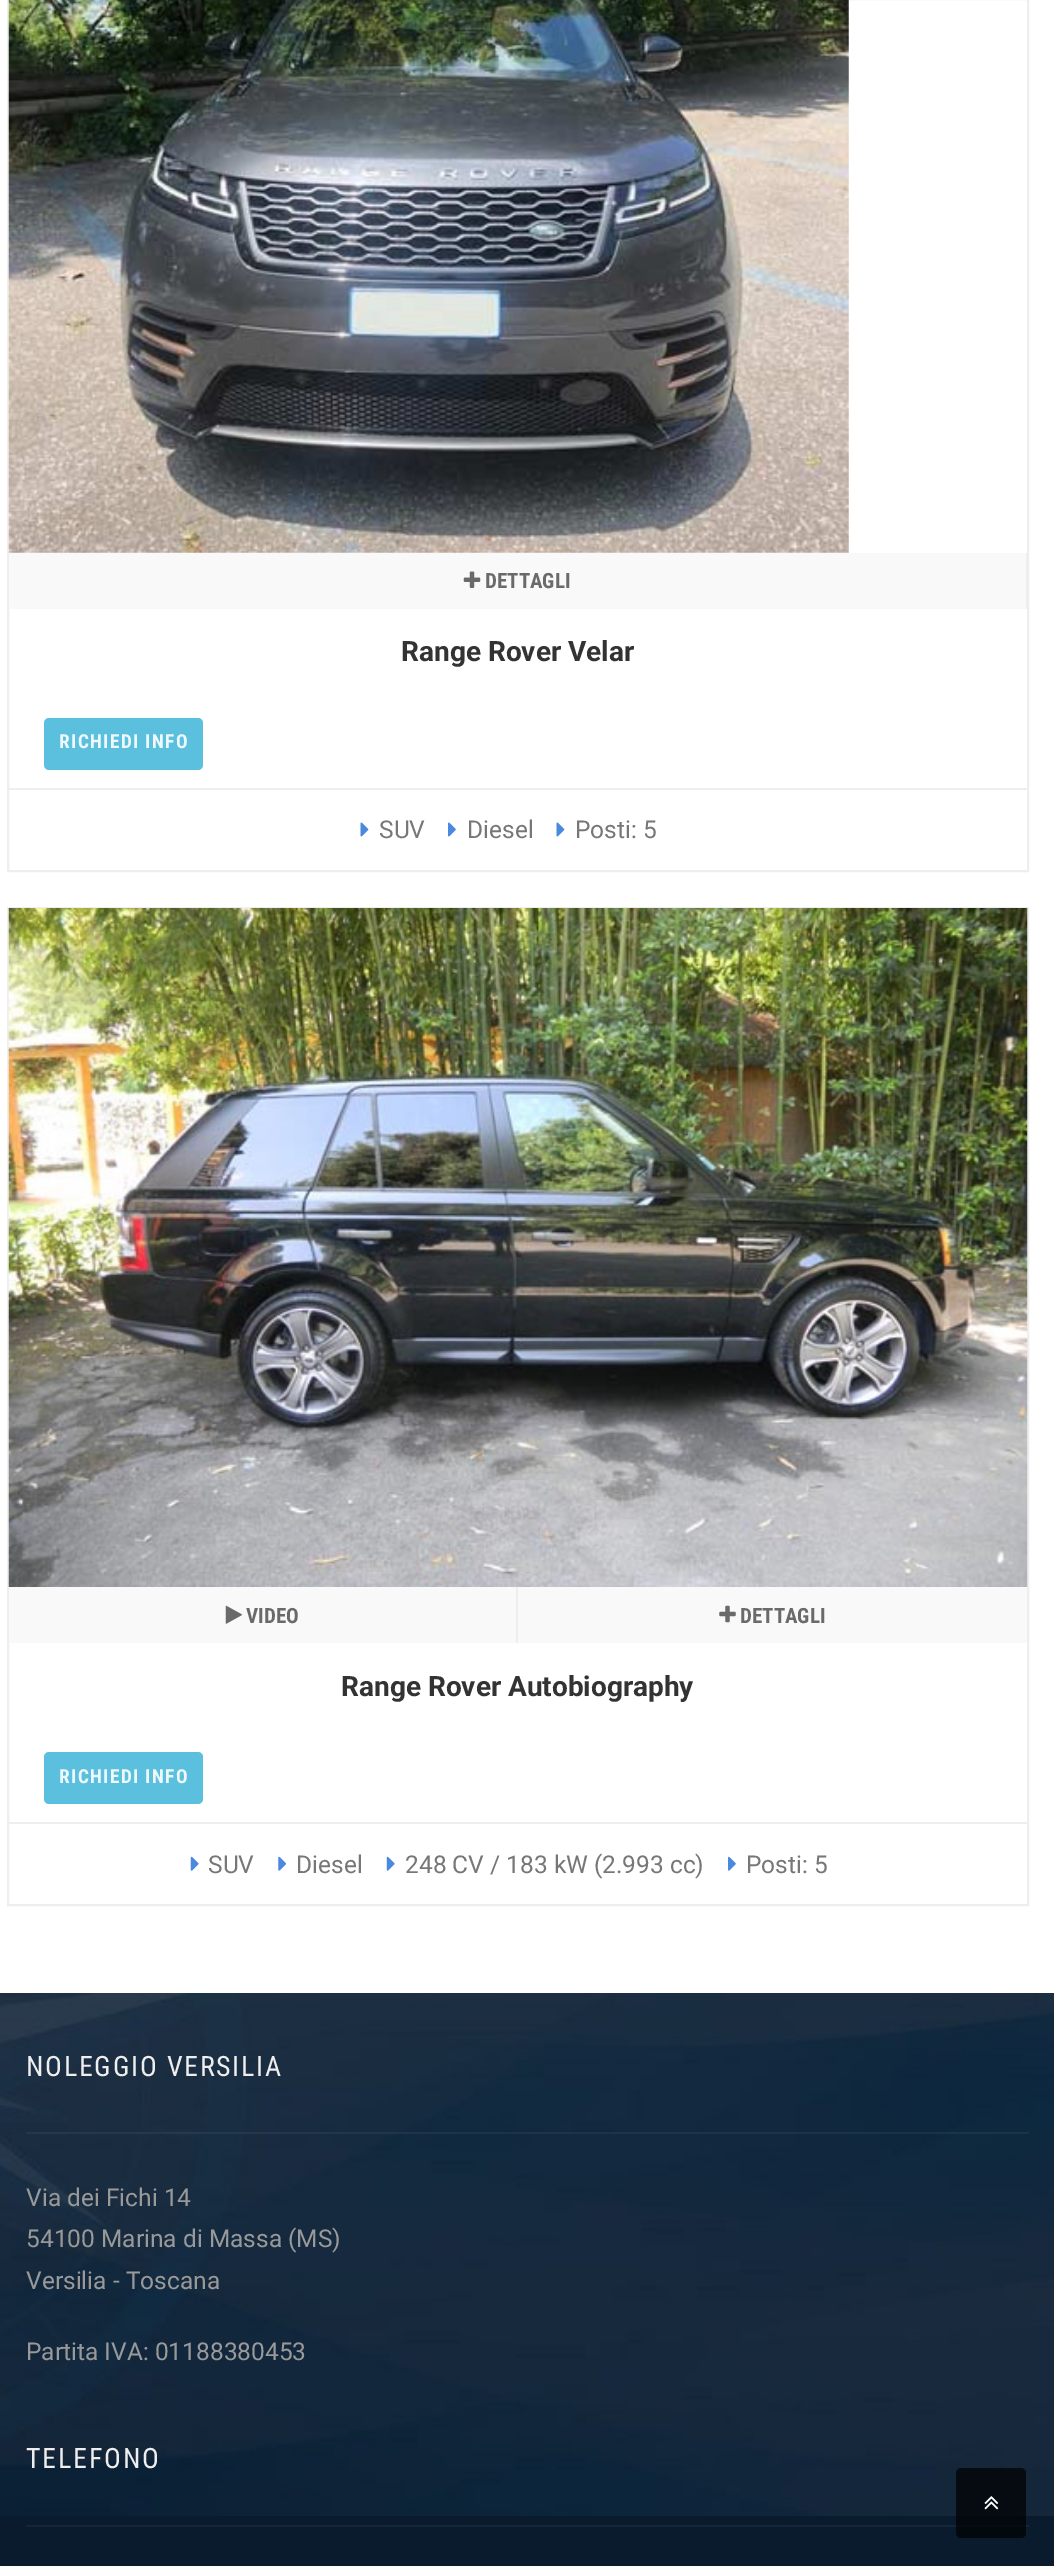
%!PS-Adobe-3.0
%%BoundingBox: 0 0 1054 2566
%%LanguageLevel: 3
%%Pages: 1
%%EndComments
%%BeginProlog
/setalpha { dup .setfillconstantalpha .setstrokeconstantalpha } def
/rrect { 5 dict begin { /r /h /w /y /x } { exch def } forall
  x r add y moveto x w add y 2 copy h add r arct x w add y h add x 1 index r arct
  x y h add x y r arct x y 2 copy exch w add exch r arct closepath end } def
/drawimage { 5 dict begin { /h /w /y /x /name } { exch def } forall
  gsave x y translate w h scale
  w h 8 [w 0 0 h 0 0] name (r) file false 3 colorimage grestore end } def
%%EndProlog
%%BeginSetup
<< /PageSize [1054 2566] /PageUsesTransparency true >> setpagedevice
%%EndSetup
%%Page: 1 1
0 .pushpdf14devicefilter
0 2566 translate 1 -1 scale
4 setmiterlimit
1 setgray
0 0 1054 2566 rectfill
0.933 setgray
2 setlinewidth
8 -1 1020 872 rectstroke
(images/1.raw) 8 0 841 553 drawimage
0.976 setgray
9 553 1017 56 rectfill
0.933 setgray
1026 553 1 56 rectfill
(images/2.raw) 463 571 18 17 drawimage
0.357 0.753 0.871 setrgbcolor
44 718 159 52 5 rrect fill
0.933 setgray
9 788 1018 2 rectfill
(images/3.raw) 360 822 9 15 drawimage
(images/4.raw) 448 822 8 15 drawimage
(images/3.raw) 556 822 9 15 drawimage
8 908 1020 997 rectstroke
(images/5.raw) 8 908 1020 679 drawimage
0.976 setgray
9 1587 507 56 rectfill
0.933 setgray
516 1587 2 56 rectfill
(images/6.raw) 225 1605 18 19 drawimage
0.976 setgray
518 1587 509 56 rectfill
(images/7.raw) 719 1605 17 18 drawimage
0.357 0.753 0.871 setrgbcolor
44 1752 159 52 5 rrect fill
0.933 setgray
9 1822 1018 2 rectfill
(images/8.raw) 190 1856 9 15 drawimage
(images/9.raw) 278 1856 9 15 drawimage
(images/8.raw) 386 1856 9 15 drawimage
(images/10.raw) 728 1856 8 15 drawimage
0.039 0.106 0.18 setrgbcolor
0 2516 1054 50 rectfill
(images/11.raw) 0 1993 1054 523 drawimage
0.05 setalpha
1 setgray
26 2132 1003 2 rectfill
1 setalpha
0.086 0.149 0.22 setrgbcolor
26 2525 1003 2 rectfill
0.7 setalpha
0 setgray
956 2468 70 70 5 rrect fill
1 setalpha
(images/12.raw) 984 2496 15 14 drawimage
/RobotoCondensed-Bold [21 0 0 -21 0 0] selectfont
0.416 setgray
485 588 moveto (DETTAGLI) show
/Roboto-Bold [28 0 0 -28 0 0] selectfont
0.2 setgray
401 661 moveto (Range Rover Velar) show
/RobotoCondensed-Bold [19.25 0 0 -19.25 0 0] selectfont
0.937 0.976 0.988 setrgbcolor
59 748 moveto 1.4 0 (RICHIEDI INFO) ashow
/Roboto-Regular [24.5 0 0 -24.5 0 0] selectfont
0.467 setgray
379 838 moveto (SUV) show
467 838 moveto (Diesel) show
575 838 moveto (Posti: 5) show
/RobotoCondensed-Bold [21 0 0 -21 0 0] selectfont
0.416 setgray
246 1623 moveto (VIDEO) show
740 1623 moveto (DETTAGLI) show
/Roboto-Bold [28 0 0 -28 0 0] selectfont
0.2 setgray
341 1696 moveto (Range Rover Autobiography) show
/RobotoCondensed-Bold [19.25 0 0 -19.25 0 0] selectfont
0.937 0.976 0.988 setrgbcolor
59 1783 moveto 1.4 0 (RICHIEDI INFO) ashow
/Roboto-Regular [24.5 0 0 -24.5 0 0] selectfont
0.467 setgray
208 1873 moveto (SUV) show
296 1873 moveto (Diesel) show
405 1873 moveto (248 CV / 183 kW \(2.993 cc\)) show
746 1873 moveto (Posti: 5) show
/RobotoCondensed-Regular [28 0 0 -28 0 0] selectfont
0.933 setgray
26 2076 moveto 1.75 0 (NOLEGGIO VERSILIA) ashow
/Roboto-Regular [24.5 0 0 -24.5 0 0] selectfont
0.6 setgray
26 2206 moveto (Via dei Fichi 14) show
26 2247 moveto (54100 Marina di Massa \(MS\)) show
26 2289 moveto (Versilia - Toscana) show
26 2360 moveto (Partita IVA: 01188380453) show
/RobotoCondensed-Regular [28 0 0 -28 0 0] selectfont
0.933 setgray
26 2468 moveto 1.75 0 (TELEFONO) ashow
.poppdf14devicefilter showpage
%%EOF
